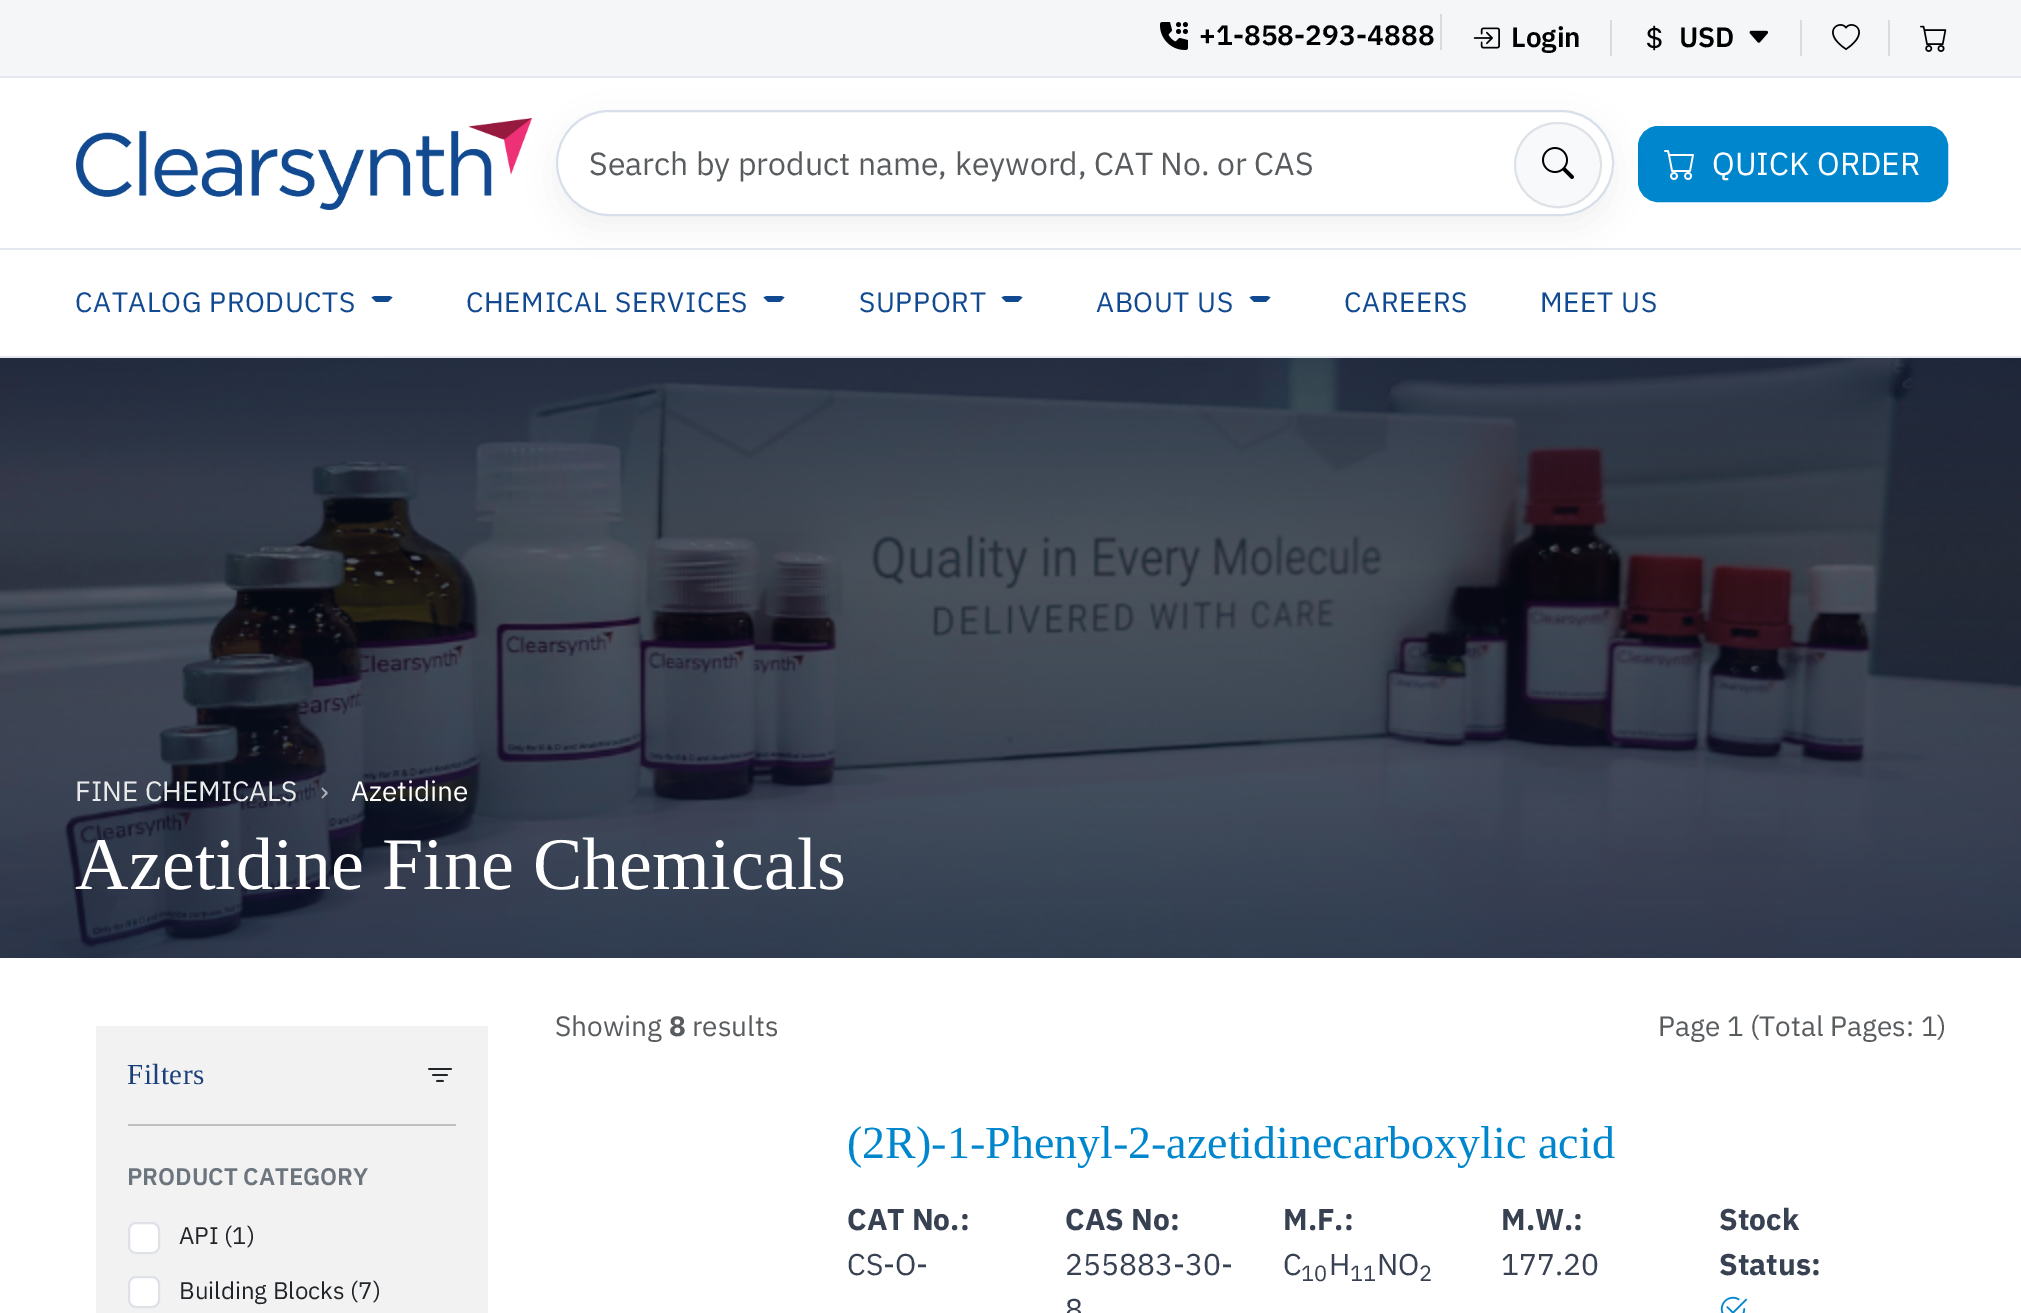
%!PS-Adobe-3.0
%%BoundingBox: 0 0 2021 1313
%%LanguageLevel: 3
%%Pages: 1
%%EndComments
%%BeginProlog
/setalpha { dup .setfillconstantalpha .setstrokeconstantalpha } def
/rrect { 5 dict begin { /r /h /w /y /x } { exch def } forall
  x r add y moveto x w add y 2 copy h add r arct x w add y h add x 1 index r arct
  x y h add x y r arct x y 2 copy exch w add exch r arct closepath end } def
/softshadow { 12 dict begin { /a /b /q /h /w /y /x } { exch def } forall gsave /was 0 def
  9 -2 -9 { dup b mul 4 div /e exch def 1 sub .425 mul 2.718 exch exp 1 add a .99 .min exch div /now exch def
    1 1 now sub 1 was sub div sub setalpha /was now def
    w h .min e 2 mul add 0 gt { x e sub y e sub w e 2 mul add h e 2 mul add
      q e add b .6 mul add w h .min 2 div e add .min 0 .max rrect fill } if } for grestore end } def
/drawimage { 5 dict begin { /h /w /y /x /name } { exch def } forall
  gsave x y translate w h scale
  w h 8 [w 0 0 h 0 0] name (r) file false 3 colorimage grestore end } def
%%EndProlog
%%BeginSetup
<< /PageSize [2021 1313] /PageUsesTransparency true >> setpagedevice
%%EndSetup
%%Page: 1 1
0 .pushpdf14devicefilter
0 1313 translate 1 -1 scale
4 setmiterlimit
1 setgray
0 0 2021 1313 rectfill
0.957 0.965 0.973 setrgbcolor
0 0 2021 76 rectfill
0.898 0.914 0.937 setrgbcolor
0 76 2021 2 rectfill
(images/1.raw) 1160 22 28 28 drawimage
0.839 0.859 0.886 setrgbcolor
1440 14 2 36 rectfill
(images/2.raw) 1473 27 27 22 drawimage
1610 20 2 36 rectfill
(images/3.raw) 1647 25 15 26 drawimage
(images/4.raw) 1749 30 19 13 drawimage
1800 20 2 36 rectfill
(images/5.raw) 1832 24 28 27 drawimage
1888 20 2 36 rectfill
(images/6.raw) 1920 25 27 27 drawimage
0.898 0.914 0.937 setrgbcolor
0 248 2021 2 rectfill
(images/7.raw) 76 118 456 92 drawimage
0 0.525 0.804 setrgbcolor
1639 127 308 74 19 rrect gsave fill grestore
2 setlinewidth
stroke
(images/9.raw) 1664 150 30 30 drawimage
gsave
newpath 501 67 moveto 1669 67 lineto 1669 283 lineto 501 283 lineto closepath 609 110 moveto 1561 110 lineto 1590.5 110 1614 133.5 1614 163 curveto 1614 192.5 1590.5 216 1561 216 curveto 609 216 lineto 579.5 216 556 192.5 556 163 curveto 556 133.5 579.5 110 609 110 curveto closepath eoclip newpath
0 setgray
556 122 1058 106 53 18 0.06 softshadow
grestore
0.843 0.875 0.918 setrgbcolor
557 111 1056 104 52 rrect stroke
0.973 0.976 0.98 setrgbcolor
1515 123 86 84 42 rrect gsave fill grestore
0.871 0.886 0.902 setrgbcolor
stroke
(images/8.raw) 1542 147 32 32 drawimage
0.898 0.914 0.937 setrgbcolor
0 356 2021 2 rectfill
0.067 0.29 0.565 setrgbcolor
newpath 376 296 moveto 374 296 373 296.5 371.5 297.5 curveto 376 302 lineto 388 302 lineto 392.5 297.5 lineto 391 296.5 390 296 388 296 curveto closepath fill
newpath 768 296 moveto 766 296 765 296.5 763.5 297.5 curveto 768 302 lineto 780 302 lineto 784.5 297.5 lineto 783 296.5 782 296 780 296 curveto closepath fill
newpath 1006 296 moveto 1004 296 1003 296.5 1001.5 297.5 curveto 1006 302 lineto 1018 302 lineto 1022.5 297.5 lineto 1021 296.5 1020 296 1018 296 curveto closepath fill
newpath 1254 296 moveto 1252 296 1251 296.5 1249.5 297.5 curveto 1254 302 lineto 1266 302 lineto 1270.5 297.5 lineto 1269 296.5 1268 296 1266 296 curveto closepath fill
(images/10.raw) 0 358 2021 600 drawimage
0.949 setgray
96 1026 392 287 rectfill
(images/11.raw) 428 1068 24 14 drawimage
0.745 0.749 0.753 setrgbcolor
128 1124 328 2 rectfill
1 setgray
129 1223 30 30 7 rrect gsave fill grestore
0.871 0.886 0.902 setrgbcolor
stroke
1 setgray
129 1277 30 30 7 rrect gsave fill grestore
0.871 0.886 0.902 setrgbcolor
stroke
(images/12.raw) 1720 1296 28 17 drawimage
/IBMPlexSans-SemiBold [28 0 0 -28 0 0] selectfont
0 setgray
1199 45 moveto (+1-858-293-4888) show
1511 47 moveto (Login) show
1679 47 moveto (USD) show
/IBMPlexSans-Regular [32 0 0 -32 0 0] selectfont
0.349 0.361 0.373 setrgbcolor
589 175 moveto (Search by product name, keyword, CAT No. or CAS) show
1 setgray
1712 175 moveto (QUICK ORDER) show
/IBMPlexSans-Regular [28 0 0 -28 0 0] selectfont
0.067 0.29 0.565 setrgbcolor
75 312 moveto 0.6 0 (CATALOG PRODUCTS) ashow
466 312 moveto 0.6 0 (CHEMICAL SERVICES) ashow
859 312 moveto 0.6 0 (SUPPORT) ashow
1096 312 moveto 0.6 0 (ABOUT US) ashow
1344 312 moveto 0.6 0 (CAREERS) ashow
1540 312 moveto 0.6 0 (MEET US) ashow
0.914 0.918 0.922 setrgbcolor
75 801 moveto (FINE CHEMICALS) show
0.682 0.698 0.722 setrgbcolor
320 801 moveto (›) show
1 setgray
351 801 moveto (Azetidine) show
/LiberationSerif-Regular [74.25 0 0 -74.25 0 0] selectfont
75 889 moveto (Azetidine Fine Chemicals) show
/LiberationSerif-Regular [29 0 0 -29 0 0] selectfont
0.102 0.247 0.478 setrgbcolor
127 1084 moveto 0.5 0 (Filters) ashow
/IBMPlexSans-SemiBold [24 0 0 -24 0 0] selectfont
0.424 0.459 0.49 setrgbcolor
127 1185 moveto (PRODUCT CATEGORY) show
/IBMPlexSans-Regular [24 0 0 -24 0 0] selectfont
0.129 0.145 0.161 setrgbcolor
179 1244 moveto (API \(1\)) show
179 1299 moveto (Building Blocks \(7\)) show
/IBMPlexSans-Regular [28 0 0 -28 0 0] selectfont
0.349 0.361 0.373 setrgbcolor
555 1036 moveto (Showing) show
/IBMPlexSans-Bold [28 0 0 -28 0 0] selectfont
669 1036 moveto (8) show
/IBMPlexSans-Regular [28 0 0 -28 0 0] selectfont
692 1036 moveto (results) show
1658 1036 moveto (Page 1 \(Total Pages: 1\)) show
/LiberationSerif-Regular [46 0 0 -46 0 0] selectfont
0 0.525 0.804 setrgbcolor
847 1158 moveto (\(2R\)-1-Phenyl-2-azetidinecarboxylic acid) show
/IBMPlexSans-Bold [30 0 0 -30 0 0] selectfont
0.216 0.255 0.318 setrgbcolor
847 1230 moveto (CAT No.:) show
/IBMPlexSans-Regular [30 0 0 -30 0 0] selectfont
847 1275 moveto (CS-O-) show
/IBMPlexSans-Bold [30 0 0 -30 0 0] selectfont
1065 1230 moveto (CAS No:) show
/IBMPlexSans-Regular [30 0 0 -30 0 0] selectfont
1065 1275 moveto (255883-30-) show
1065 1320 moveto (8) show
/IBMPlexSans-Bold [30 0 0 -30 0 0] selectfont
1283 1230 moveto (M.F.:) show
/IBMPlexSans-Regular [30 0 0 -30 0 0] selectfont
1283 1275 moveto (C) show
/IBMPlexSans-Regular [22 0 0 -22 0 0] selectfont
1301 1281 moveto (10) show
/IBMPlexSans-Regular [30 0 0 -30 0 0] selectfont
1329 1275 moveto (H) show
/IBMPlexSans-Regular [22 0 0 -22 0 0] selectfont
1350 1281 moveto (11) show
/IBMPlexSans-Regular [30 0 0 -30 0 0] selectfont
1377 1275 moveto (NO) show
/IBMPlexSans-Regular [22 0 0 -22 0 0] selectfont
1419 1281 moveto (2) show
/IBMPlexSans-Bold [30 0 0 -30 0 0] selectfont
1501 1230 moveto (M.W.:) show
/IBMPlexSans-Regular [30 0 0 -30 0 0] selectfont
1501 1275 moveto (177.20) show
/IBMPlexSans-Bold [30 0 0 -30 0 0] selectfont
1719 1230 moveto (Stock) show
1719 1275 moveto (Status:) show
.poppdf14devicefilter showpage
%%EOF
